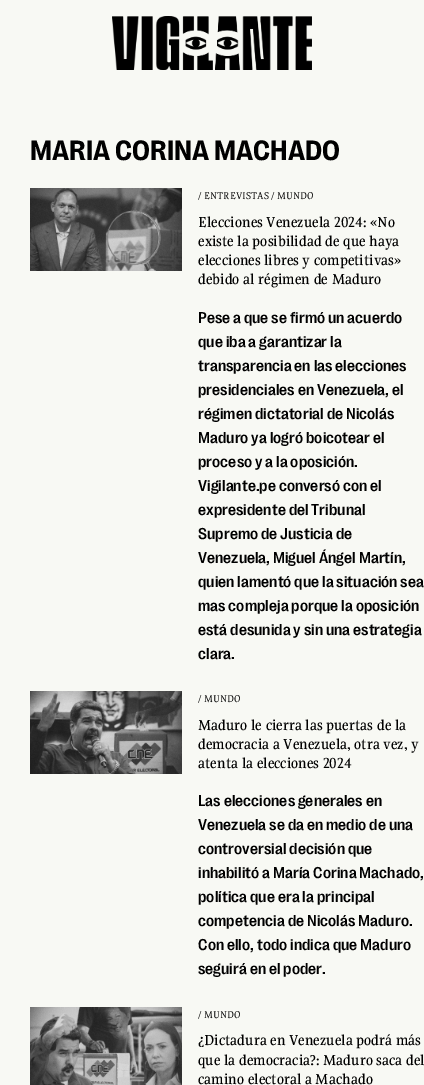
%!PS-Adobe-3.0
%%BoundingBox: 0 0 424 1085
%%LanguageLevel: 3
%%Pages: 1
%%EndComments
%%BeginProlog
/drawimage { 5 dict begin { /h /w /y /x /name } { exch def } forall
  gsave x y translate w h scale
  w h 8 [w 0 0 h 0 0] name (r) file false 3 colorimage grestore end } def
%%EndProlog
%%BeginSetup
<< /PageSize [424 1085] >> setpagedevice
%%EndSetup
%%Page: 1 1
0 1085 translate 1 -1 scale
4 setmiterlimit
0.973 0.976 0.957 setrgbcolor
0 0 424 1085 rectfill
(images/1.raw) 112 16 200 54 drawimage
(images/2.raw) 30 188 152 83 drawimage
(images/3.raw) 30 691 152 83 drawimage
(images/4.raw) 30 1007 152 78 drawimage
/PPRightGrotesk-Bold [28.4 0 0 -28.4 0 0] selectfont
0 setgray
30 160 moveto (MARIA CORINA MACHADO) show
/Gupter-Regular [11 0 0 -11 0 0] selectfont
198 199 moveto (/ ENTREVISTAS / MUNDO) show
/Gupter-Medium [16 0 0 -16 0 0] selectfont
198 227 moveto (Elecciones Venezuela 2024: «No) show
198 246 moveto (existe la posibilidad de que haya) show
198 265 moveto (elecciones libres y competitivas») show
198 284 moveto (debido al régimen de Maduro) show
/PPRightGrotesk-Medium [16 0 0 -16 0 0] selectfont
198 323 moveto (Pese a que se firmó un acuerdo) show
198 347 moveto (que iba a garantizar la) show
198 371 moveto (transparencia en las elecciones) show
198 395 moveto (presidenciales en Venezuela, el) show
198 419 moveto (régimen dictatorial de Nicolás) show
198 443 moveto (Maduro ya logró boicotear el) show
198 467 moveto (proceso y a la oposición.) show
198 491 moveto (Vigilante.pe conversó con el) show
198 515 moveto (expresidente del Tribunal) show
198 539 moveto (Supremo de Justicia de) show
198 563 moveto (Venezuela, Miguel Ángel Martín,) show
198 587 moveto (quien lamentó que la situación sea) show
198 611 moveto (mas compleja porque la oposición) show
198 635 moveto (está desunida y sin una estrategia) show
198 659 moveto (clara.) show
/Gupter-Regular [11 0 0 -11 0 0] selectfont
198 702 moveto (/ MUNDO) show
/Gupter-Medium [16 0 0 -16 0 0] selectfont
198 730 moveto (Maduro le cierra las puertas de la) show
198 749 moveto (democracia a Venezuela, otra vez, y) show
198 768 moveto (atenta la elecciones 2024) show
/PPRightGrotesk-Medium [16 0 0 -16 0 0] selectfont
198 806 moveto (Las elecciones generales en) show
198 830 moveto (Venezuela se da en medio de una) show
198 854 moveto (controversial decisión que) show
198 878 moveto (inhabilitó a María Corina Machado,) show
198 902 moveto (política que era la principal) show
198 926 moveto (competencia de Nicolás Maduro.) show
198 950 moveto (Con ello, todo indica que Maduro) show
198 974 moveto (seguirá en el poder.) show
/Gupter-Regular [11 0 0 -11 0 0] selectfont
198 1018 moveto (/ MUNDO) show
/Gupter-Medium [16 0 0 -16 0 0] selectfont
198 1045 moveto (¿Dictadura en Venezuela podrá más) show
198 1065 moveto (que la democracia?: Maduro saca del) show
198 1084 moveto (camino electoral a Machado) show
showpage
%%EOF
